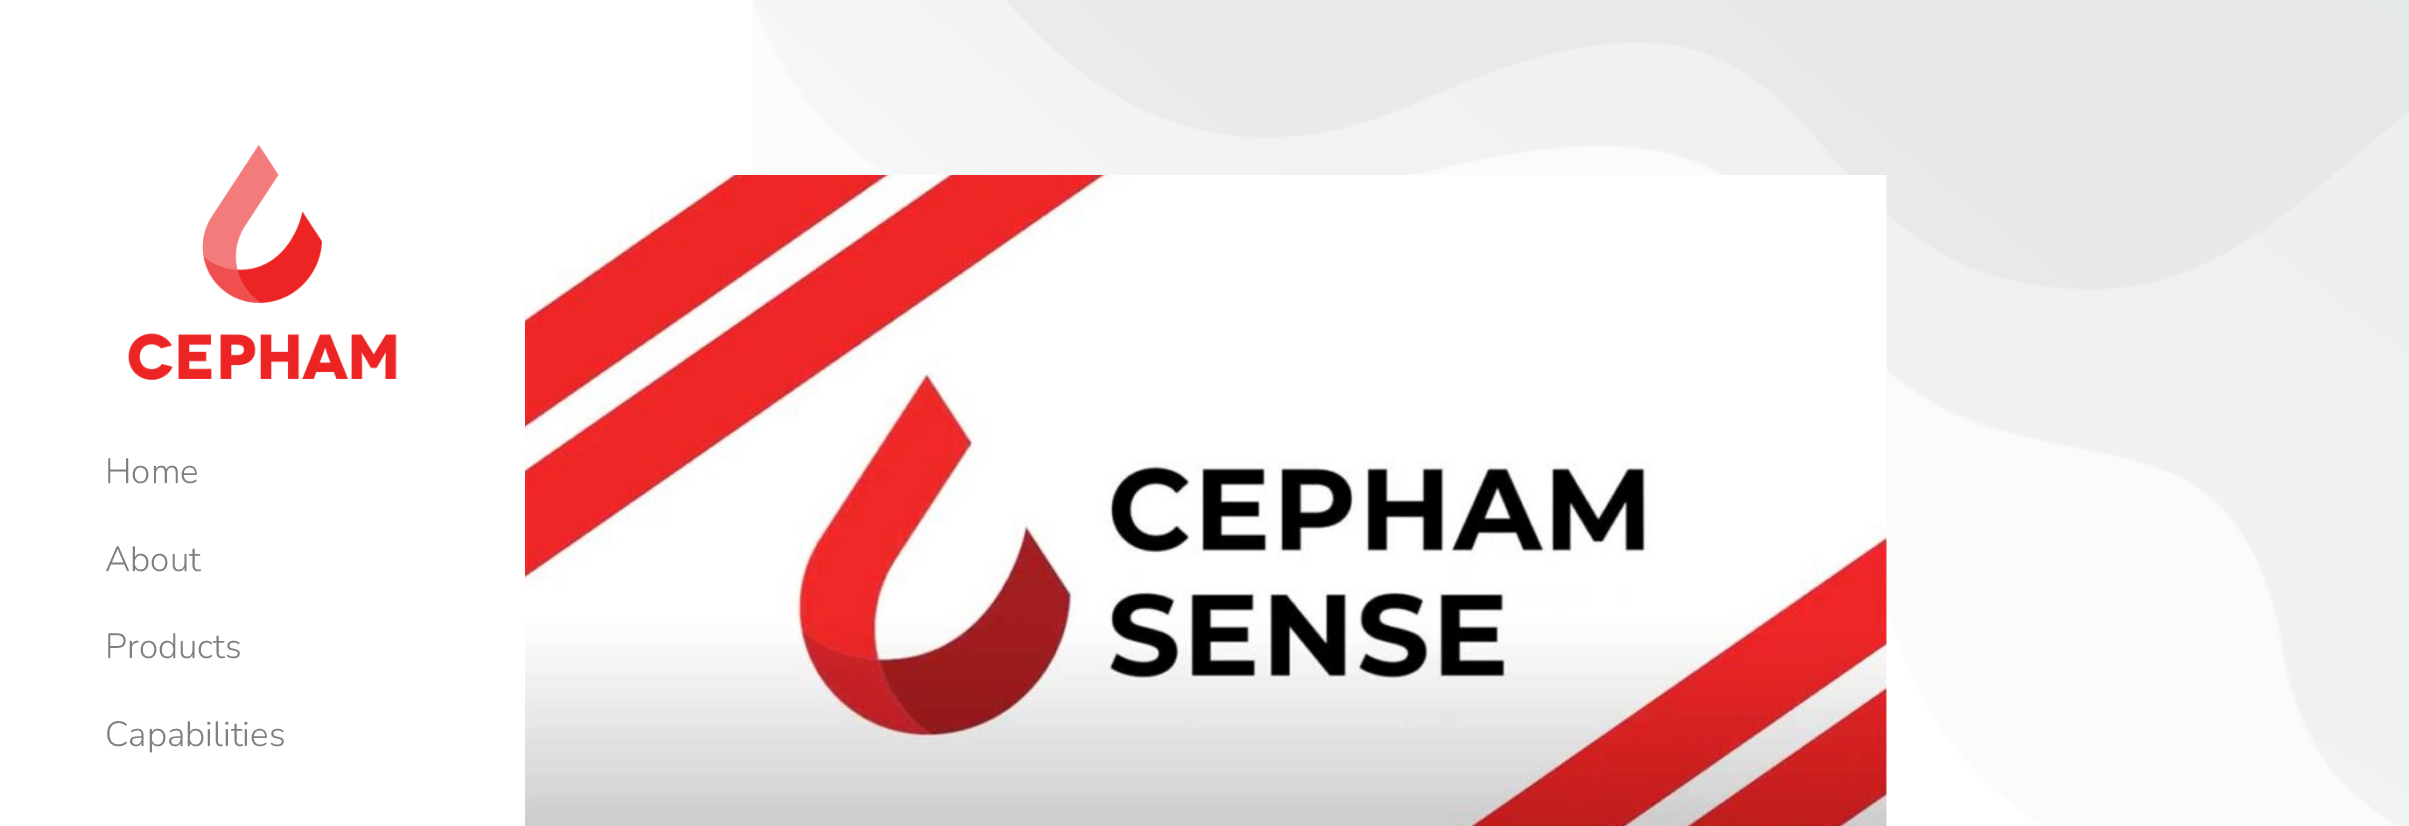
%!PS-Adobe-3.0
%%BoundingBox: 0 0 2409 826
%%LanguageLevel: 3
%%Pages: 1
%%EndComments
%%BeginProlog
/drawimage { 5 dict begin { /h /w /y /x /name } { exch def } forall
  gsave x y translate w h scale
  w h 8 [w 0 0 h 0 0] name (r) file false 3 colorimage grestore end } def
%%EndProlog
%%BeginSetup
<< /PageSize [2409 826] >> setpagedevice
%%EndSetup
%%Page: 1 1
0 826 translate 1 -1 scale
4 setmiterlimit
1 setgray
0 0 2409 826 rectfill
(images/1.raw) 752 0 1657 826 drawimage
(images/2.raw) 128 144 269 236 drawimage
(images/3.raw) 525 175 1362 651 drawimage
/Nunito-Light [35 0 0 -35 0 0] selectfont
0.486 0.498 0.514 setrgbcolor
105 483 moveto (Home) show
105 571 moveto (About) show
105 658 moveto (Products) show
105 746 moveto (Capabilities) show
showpage
%%EOF
